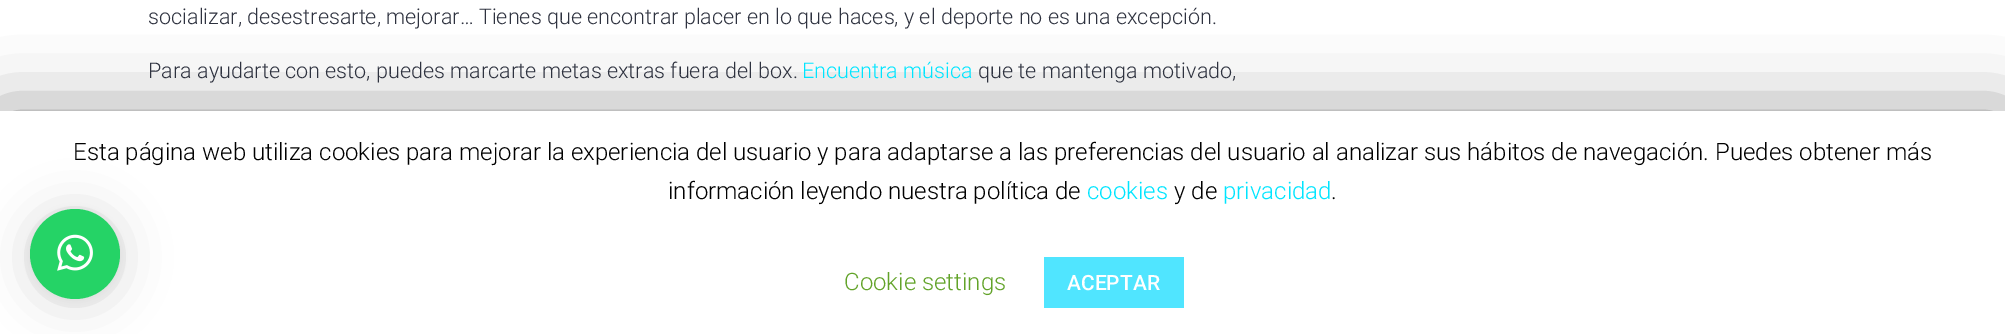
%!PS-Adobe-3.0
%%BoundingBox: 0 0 2005 334
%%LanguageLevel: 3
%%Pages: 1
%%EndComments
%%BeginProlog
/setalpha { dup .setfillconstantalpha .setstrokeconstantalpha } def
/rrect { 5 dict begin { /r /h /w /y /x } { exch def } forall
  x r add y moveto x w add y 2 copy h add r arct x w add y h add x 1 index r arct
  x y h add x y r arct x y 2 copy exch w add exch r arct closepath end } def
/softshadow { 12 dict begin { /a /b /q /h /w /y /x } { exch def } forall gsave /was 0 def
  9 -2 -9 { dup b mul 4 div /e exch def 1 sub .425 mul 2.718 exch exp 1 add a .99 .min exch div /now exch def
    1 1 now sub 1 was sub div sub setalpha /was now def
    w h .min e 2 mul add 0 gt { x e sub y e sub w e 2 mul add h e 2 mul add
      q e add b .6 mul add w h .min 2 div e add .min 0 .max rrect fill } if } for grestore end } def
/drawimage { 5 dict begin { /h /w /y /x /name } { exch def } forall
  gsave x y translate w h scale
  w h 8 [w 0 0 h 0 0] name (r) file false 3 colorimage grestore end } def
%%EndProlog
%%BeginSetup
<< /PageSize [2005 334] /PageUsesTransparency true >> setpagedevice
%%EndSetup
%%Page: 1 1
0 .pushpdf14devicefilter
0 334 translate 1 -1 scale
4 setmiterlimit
1 setgray
0 0 2005 334 rectfill
0 setgray
0 119 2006 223 0 37.5 0.5 softshadow
1 setgray
0 111 2005 223 rectfill
0 setgray
30 212 90 90 45 24 0.16 softshadow
30 210 90 90 45 4.5 0.06 softshadow
0.145 0.827 0.4 setrgbcolor
newpath 75 254 45 0 360 arc closepath fill
(images/1.raw) 57 234 36 37 drawimage
0.314 0.898 1 setrgbcolor
1044 257 140 51 rectfill
/Roboto-Light [21.6 0 0 -21.6 0 0] selectfont
0.18 0.196 0.247 setrgbcolor
148 24 moveto (socializar, desestresarte, mejorar… Tienes que encontrar placer en lo que haces, y el deporte no es una excepción.) show
148 78 moveto (Para ayudarte con esto, puedes marcarte metas extras fuera del box.) show
0 0.898 1 setrgbcolor
802 78 moveto (Encuentra música) show
0.18 0.196 0.247 setrgbcolor
978 78 moveto (que te mantenga motivado,) show
/Roboto-Light [24 0 0 -24 0 0] selectfont
0 setgray
73 160 moveto (Esta página web utiliza cookies para mejorar la experiencia del usuario y para adaptarse a las preferencias del usuario al analizar sus hábitos de navegación. Puedes obtener más) show
668 199 moveto (información leyendo nuestra política de) show
0 0.898 1 setrgbcolor
1087 199 moveto (cookies) show
0 setgray
1174 199 moveto (y de) show
0 0.898 1 setrgbcolor
1223 199 moveto (privacidad) show
0 setgray
1331 199 moveto (.) show
0.384 0.639 0.161 setrgbcolor
844 290 moveto (Cookie settings) show
/Roboto-Medium [21 0 0 -21 0 0] selectfont
1 setgray
1067 290 moveto (ACEPTAR) show
.poppdf14devicefilter showpage
%%EOF
